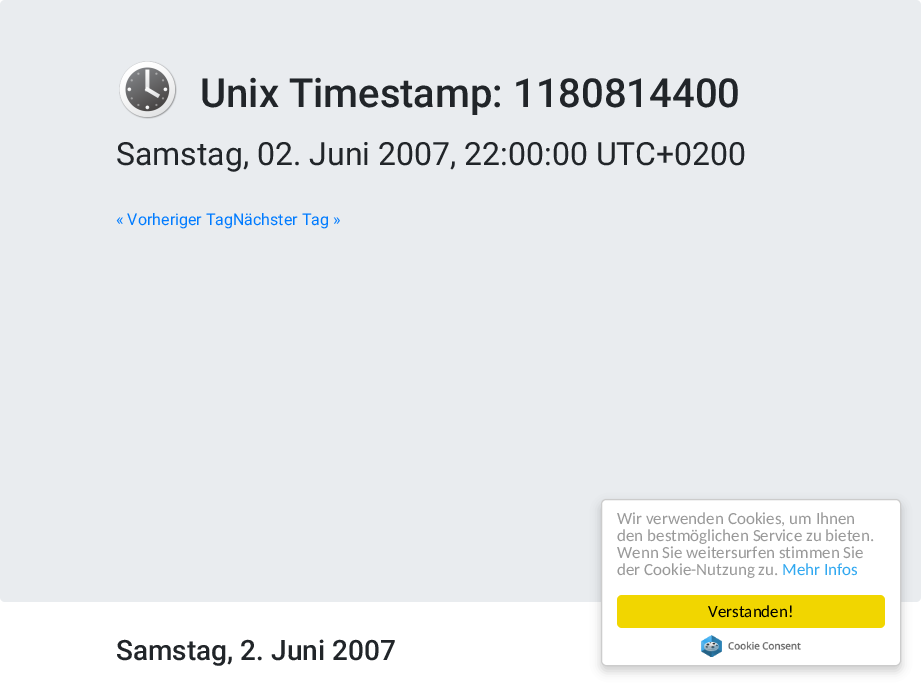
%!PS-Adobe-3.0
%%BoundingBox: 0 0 921 686
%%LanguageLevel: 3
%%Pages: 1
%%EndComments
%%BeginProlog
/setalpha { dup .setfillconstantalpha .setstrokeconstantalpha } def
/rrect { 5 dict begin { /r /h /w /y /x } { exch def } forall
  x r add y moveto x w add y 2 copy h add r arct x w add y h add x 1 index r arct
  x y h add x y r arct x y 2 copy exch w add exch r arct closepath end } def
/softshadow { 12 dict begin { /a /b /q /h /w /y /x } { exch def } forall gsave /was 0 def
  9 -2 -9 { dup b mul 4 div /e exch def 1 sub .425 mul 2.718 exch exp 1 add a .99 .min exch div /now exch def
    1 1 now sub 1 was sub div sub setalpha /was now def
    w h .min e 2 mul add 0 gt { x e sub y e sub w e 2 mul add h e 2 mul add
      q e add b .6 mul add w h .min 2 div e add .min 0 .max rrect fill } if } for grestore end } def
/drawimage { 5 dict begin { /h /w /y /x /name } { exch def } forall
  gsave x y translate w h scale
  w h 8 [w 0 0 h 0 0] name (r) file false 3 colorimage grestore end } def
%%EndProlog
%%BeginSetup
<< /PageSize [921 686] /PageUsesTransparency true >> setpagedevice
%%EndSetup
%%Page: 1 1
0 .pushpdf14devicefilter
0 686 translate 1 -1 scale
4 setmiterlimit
1 setgray
0 0 921 686 rectfill
0.914 0.925 0.937 setrgbcolor
0 0 921 602 5 rrect fill
(images/1.raw) 119 61 58 58 drawimage
0 setgray
601 504 300 167 5 5 0.2 softshadow
1 setgray
601.5 499.5 299 166 4.5 rrect gsave fill grestore
0.8 setgray
stroke
0.945 0.839 0 setrgbcolor
617 595 268 33 5 rrect fill
(images/2.raw) 701 635 100 22 drawimage
/Roboto-Medium [40 0 0 -40 0 0] selectfont
0.129 0.145 0.161 setrgbcolor
200 107 moveto (Unix Timestamp: 1180814400) show
/Roboto-Regular [32 0 0 -32 0 0] selectfont
116 165 moveto (Samstag, 02. Juni 2007, 22:00:00 UTC+0200) show
/Roboto-Regular [16 0 0 -16 0 0] selectfont
0 0.482 1 setrgbcolor
116 225 moveto (« Vorheriger TagNächster Tag ») show
/Carlito-Regular [17 0 0 -17 0 0] selectfont
0.6 setgray
617 524 moveto (Wir verwenden Cookies, um Ihnen) show
617 541 moveto (den bestmöglichen Service zu bieten.) show
617 558 moveto (Wenn Sie weitersurfen stimmen Sie) show
617 575 moveto (der Cookie-Nutzung zu.) show
0.192 0.659 0.941 setrgbcolor
782 575 moveto (Mehr Infos) show
0 setgray
708 617 moveto (Verstanden!) show
/Roboto-Medium [28 0 0 -28 0 0] selectfont
0.129 0.145 0.161 setrgbcolor
116 660 moveto (Samstag, 2. Juni 2007) show
.poppdf14devicefilter showpage
%%EOF
